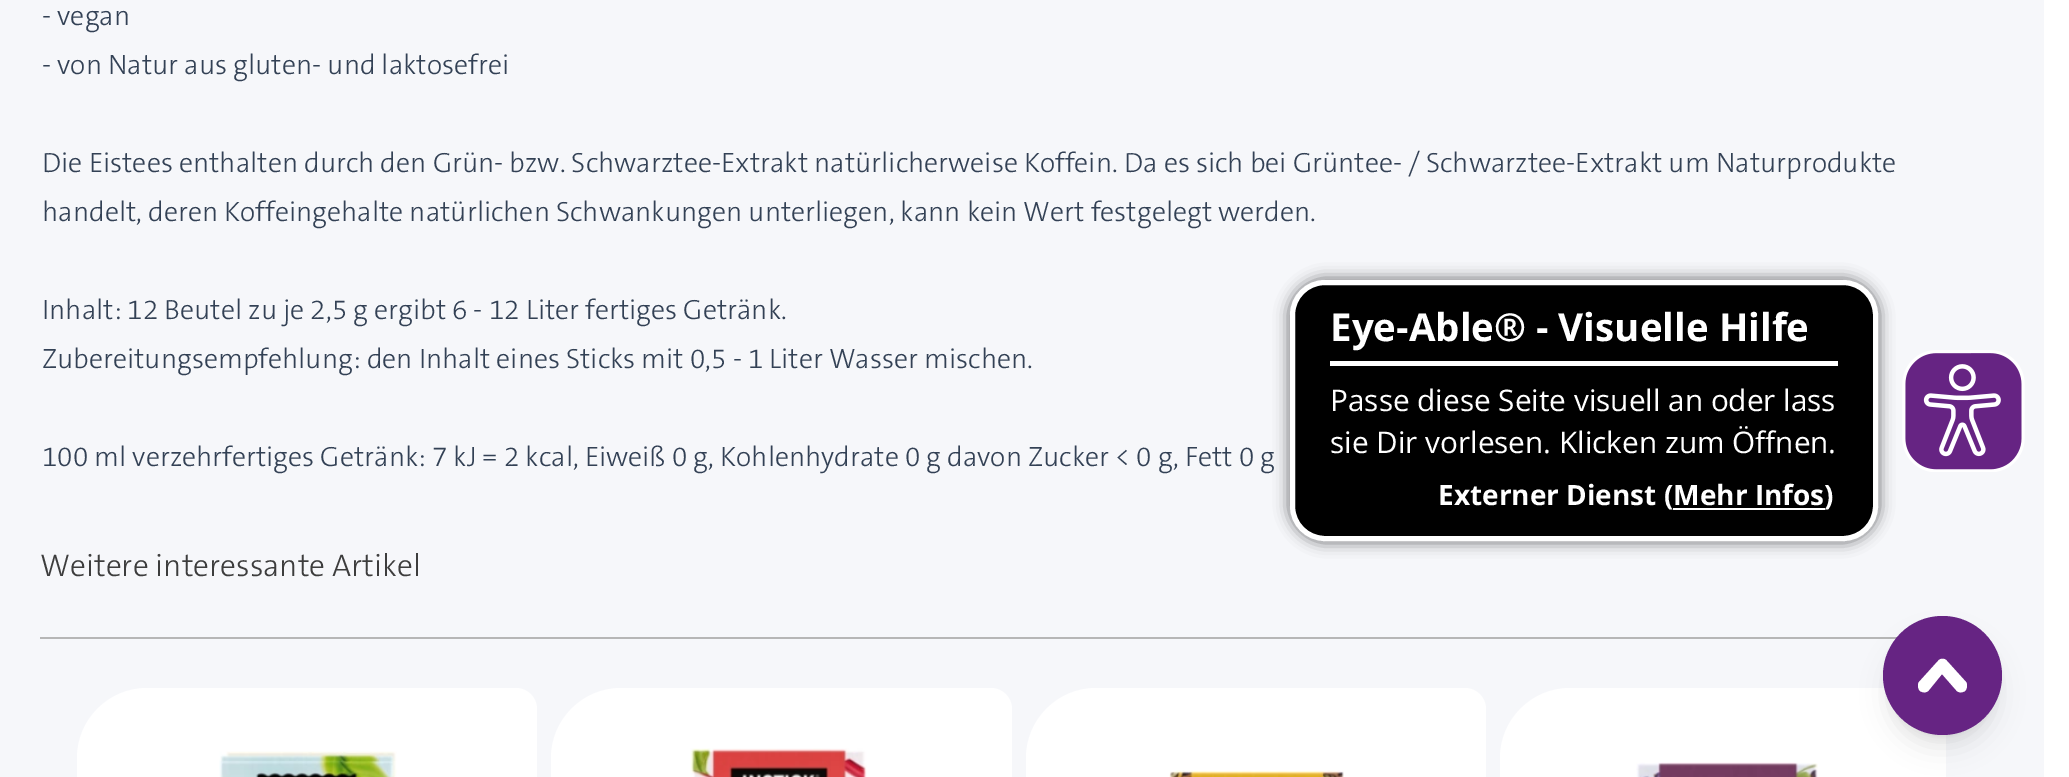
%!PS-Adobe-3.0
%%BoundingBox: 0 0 2069 777
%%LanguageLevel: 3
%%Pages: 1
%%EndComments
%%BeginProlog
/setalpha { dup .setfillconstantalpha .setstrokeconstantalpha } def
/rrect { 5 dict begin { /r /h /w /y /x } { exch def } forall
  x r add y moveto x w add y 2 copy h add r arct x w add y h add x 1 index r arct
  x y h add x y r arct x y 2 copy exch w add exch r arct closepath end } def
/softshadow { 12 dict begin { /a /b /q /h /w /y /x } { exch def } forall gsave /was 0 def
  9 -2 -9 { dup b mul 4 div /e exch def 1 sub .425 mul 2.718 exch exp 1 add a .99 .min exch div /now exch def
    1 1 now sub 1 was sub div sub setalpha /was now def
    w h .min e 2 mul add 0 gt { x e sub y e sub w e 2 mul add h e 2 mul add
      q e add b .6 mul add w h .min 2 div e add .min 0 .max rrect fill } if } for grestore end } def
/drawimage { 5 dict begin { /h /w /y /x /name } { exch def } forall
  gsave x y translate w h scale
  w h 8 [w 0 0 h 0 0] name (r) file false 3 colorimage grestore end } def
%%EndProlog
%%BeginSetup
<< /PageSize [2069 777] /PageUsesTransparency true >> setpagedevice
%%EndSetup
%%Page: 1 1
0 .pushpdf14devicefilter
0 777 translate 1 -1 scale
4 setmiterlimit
1 setgray
0 0 2069 777 rectfill
0.965 0.969 0.98 setrgbcolor
0 0 2044 777 rectfill
0.714 setgray
40 637 1858 2 rectfill
1 setgray
newpath 147 688 moveto 516 688 lineto 527.5 688 537 697.5 537 709 curveto 537 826 lineto 537 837.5 527.5 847 516 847 curveto 98 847 lineto 86.5 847 77 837.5 77 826 curveto 77 758 lineto 77 719.5 108.5 688 147 688 curveto closepath fill
(images/1.raw) 219 751 178 26 drawimage
newpath 621 688 moveto 991 688 lineto 1002.5 688 1012 697.5 1012 709 curveto 1012 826 lineto 1012 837.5 1002.5 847 991 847 curveto 572 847 lineto 560.5 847 551 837.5 551 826 curveto 551 758 lineto 551 719.5 582.5 688 621 688 curveto closepath fill
(images/2.raw) 690 748 177 29 drawimage
newpath 1096 688 moveto 1465 688 lineto 1476.5 688 1486 697.5 1486 709 curveto 1486 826 lineto 1486 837.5 1476.5 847 1465 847 curveto 1047 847 lineto 1035.5 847 1026 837.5 1026 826 curveto 1026 758 lineto 1026 719.5 1057.5 688 1096 688 curveto closepath fill
(images/3.raw) 1169 770 175 7 drawimage
gsave
77 681 1869 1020 rectclip
newpath 1570 688 moveto 1939 688 lineto 1950.5 688 1960 697.5 1960 709 curveto 1960 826 lineto 1960 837.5 1950.5 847 1939 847 curveto 1521 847 lineto 1509.5 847 1500 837.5 1500 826 curveto 1500 758 lineto 1500 719.5 1531.5 688 1570 688 curveto closepath fill
grestore
(images/4.raw) 1636 762 182 15 drawimage
0 setgray
1288 278 592 265 37 7 0.5 softshadow
1292.5 282.5 583 256 32.5 rrect gsave fill grestore
1 setgray
5 setlinewidth
stroke
1330 361 508 5 rectfill
1673 508 152 2 rectfill
(images/5.raw) 1902 350 123 122 drawimage
0 setgray
1890 630 105 105 52.5 5 0.1 softshadow
1888 639 109 108 54 13 0.1 softshadow
0.4 0.141 0.514 setrgbcolor
newpath 1942.5 675.5 59.5 0 360 arc closepath fill
1 setgray
newpath 1929 690 moveto 1927 693 1923 693 1920 691 curveto 1918 689 1917 685 1919 682 curveto 1938 661 lineto 1940 658 1945 658 1947 661 curveto 1966 682 lineto 1968 685 1967 689 1965 691 curveto 1962 693 1958 693 1956 690 curveto 1942 674 lineto closepath fill
/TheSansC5-Light [28 0 0 -28 0 0] selectfont
0.2 0.255 0.333 setrgbcolor
42 25 moveto (- vegan) show
42 74 moveto (- von Natur aus gluten- und laktosefrei) show
42 172 moveto (Die Eistees enthalten durch den Grün- bzw. Schwarztee-Extrakt natürlicherweise Koffein. Da es sich bei Grüntee- / Schwarztee-Extrakt um Naturprodukte) show
42 221 moveto (handelt, deren Koffeingehalte natürlichen Schwankungen unterliegen, kann kein Wert festgelegt werden.) show
42 319 moveto (Inhalt: 12 Beutel zu je 2,5 g ergibt 6 - 12 Liter fertiges Getränk.) show
42 368 moveto (Zubereitungsempfehlung: den Inhalt eines Sticks mit 0,5 - 1 Liter Wasser mischen.) show
42 466 moveto (100 ml verzehrfertiges Getränk: 7 kJ = 2 kcal, Eiweiß 0 g, Kohlenhydrate 0 g davon Zucker < 0 g, Fett 0 g) show
/TheSansC5-Light [31.5 0 0 -31.5 0 0] selectfont
0.239 setgray
40 576 moveto (Weitere interessante Artikel) show
/OpenSans-Bold [38.5 0 0 -38.5 0 0] selectfont
1 setgray
1330 341 moveto (Eye-Able® - Visuelle Hilfe) show
/OpenSans-Regular [29.75 0 0 -29.75 0 0] selectfont
1330 411 moveto (Passe diese Seite visuell an oder lass) show
1330 453 moveto (sie Dir vorlesen. Klicken zum Öffnen.) show
/OpenSans-Bold [28 0 0 -28 0 0] selectfont
1438 505 moveto (Externer Dienst \(Mehr Infos\)) show
.poppdf14devicefilter showpage
%%EOF
